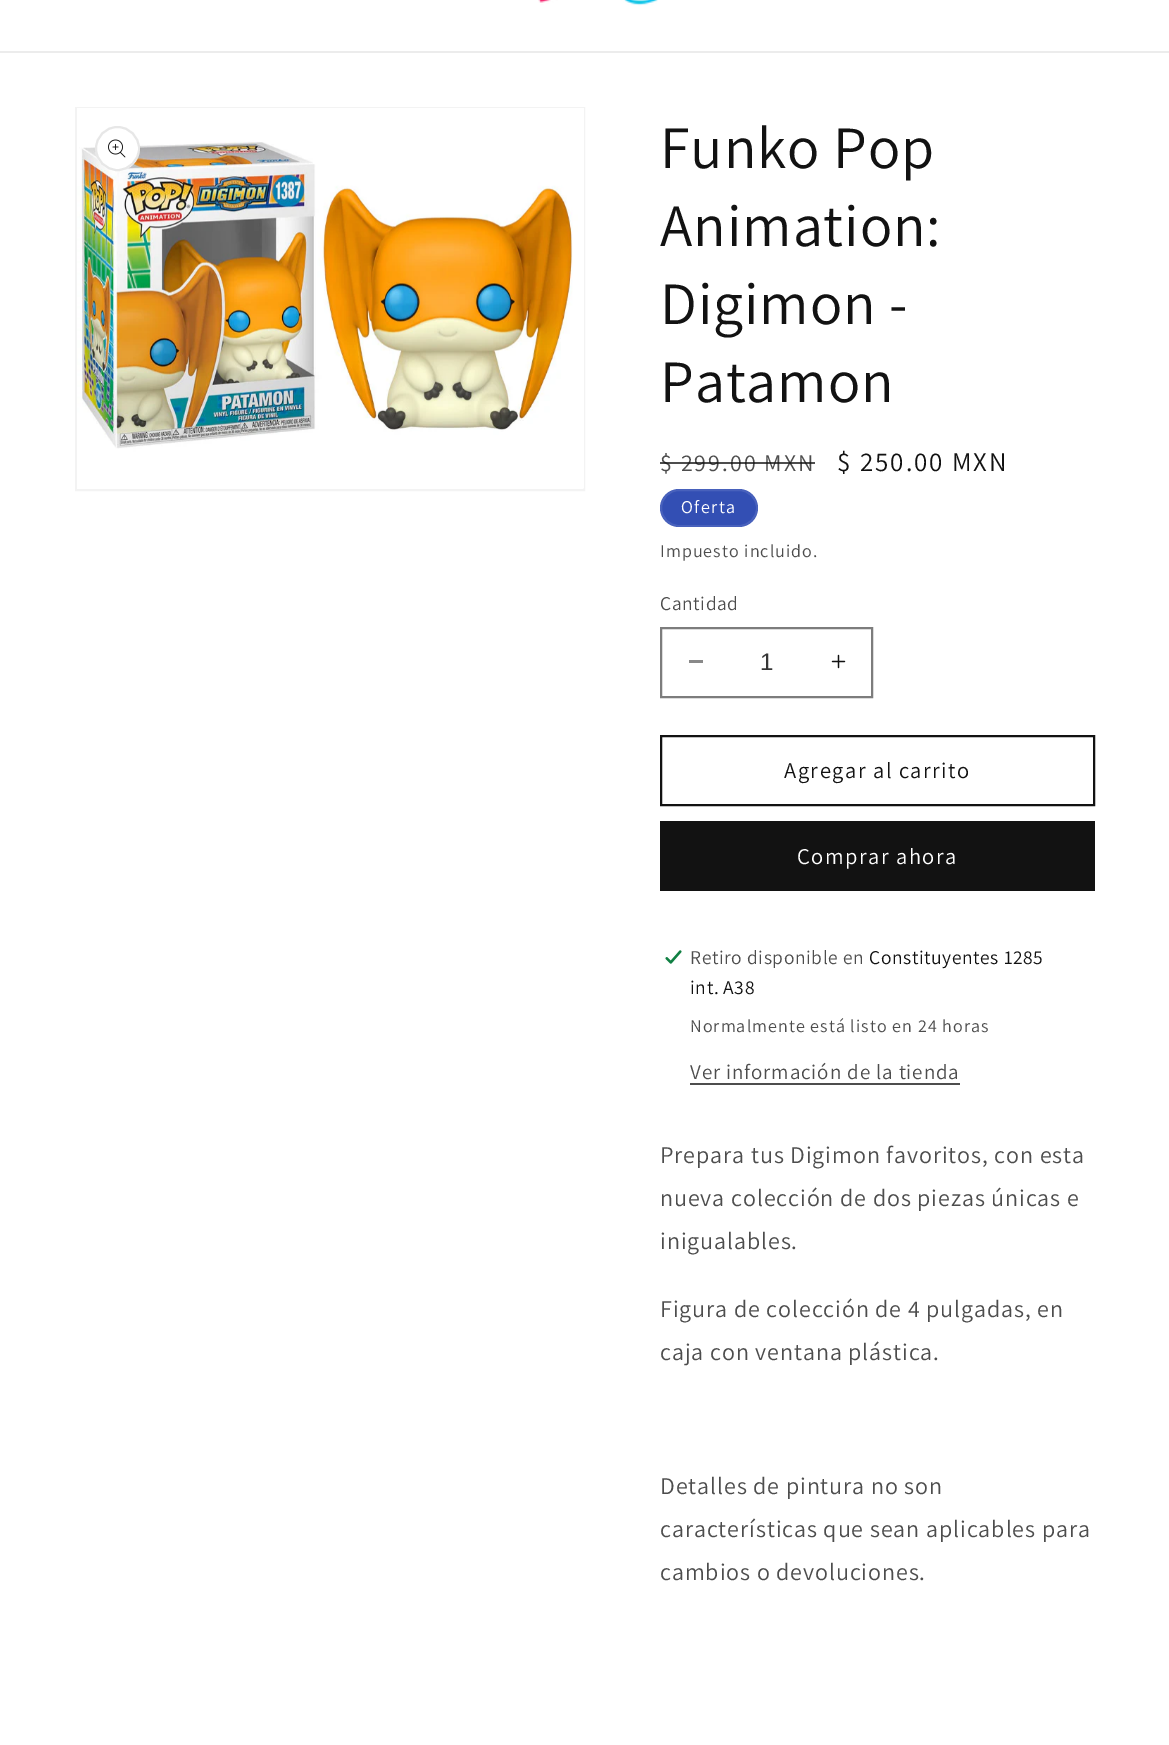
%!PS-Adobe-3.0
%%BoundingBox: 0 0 1169 1745
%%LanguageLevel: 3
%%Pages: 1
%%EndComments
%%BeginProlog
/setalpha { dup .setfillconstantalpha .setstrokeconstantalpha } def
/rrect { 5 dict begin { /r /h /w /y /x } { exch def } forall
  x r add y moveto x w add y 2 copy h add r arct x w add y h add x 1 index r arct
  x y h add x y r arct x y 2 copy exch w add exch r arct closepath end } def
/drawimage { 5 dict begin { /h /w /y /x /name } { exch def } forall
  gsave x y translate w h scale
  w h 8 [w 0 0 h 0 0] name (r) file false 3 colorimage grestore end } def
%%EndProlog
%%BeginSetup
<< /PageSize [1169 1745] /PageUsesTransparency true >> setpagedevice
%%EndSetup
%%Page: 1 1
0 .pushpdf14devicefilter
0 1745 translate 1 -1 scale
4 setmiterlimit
1 setgray
0 0 1169 1745 rectfill
0.925 setgray
0 51 1169 2 rectfill
(images/1.raw) 538 0 120 6 drawimage
0.953 setgray
2 setlinewidth
76 108 508 382 rectstroke
(images/2.raw) 77 108 507 381 drawimage
1 setgray
newpath 117.5 148.5 22.5 0 360 arc closepath fill
0.1 setalpha
0.071 setgray
newpath 117.5 148.5 21.5 0 360 arc closepath stroke
1 setalpha
(images/3.raw) 108 139 18 19 drawimage
0.2 0.31 0.706 setrgbcolor
660 489 98 38 19 rrect fill
0.1 setalpha
1 setgray
661 490 96 36 18 rrect stroke
1 setalpha
0.537 setgray
689 660 14 3 rectfill
(images/4.raw) 831 654 15 15 drawimage
0.49 setgray
661 628 211 69 rectstroke
0.071 setgray
661 736 433 69 rectstroke
660 821 435 70 rectfill
(images/5.raw) 664 950 18 14 drawimage
0.302 setgray
690 1083 270 2 rectfill
/Assistant-Regular [60 0 0 -60 0 0] selectfont
0.071 setgray
660 168 moveto 0.9 0 (Funko Pop) ashow
660 246 moveto 0.9 0 (Animation:) ashow
660 324 moveto 0.9 0 (Digimon -) ashow
660 402 moveto 0.9 0 (Patamon) ashow
/Assistant-Regular [24 0 0 -24 0 0] selectfont
0.302 setgray
660 471 moveto 2 0 ($ 299.00 MXN) ashow
0.75 setalpha
0.071 setgray
660 462 155 2 rectfill
/Assistant-Regular [27 0 0 -27 0 0] selectfont
1 setalpha
837 471 moveto 2 0 ($ 250.00 MXN) ashow
/Assistant-Regular [18 0 0 -18 0 0] selectfont
1 setgray
681 513 moveto 1.5 0 (Oferta) ashow
0.302 setgray
660 557 moveto 1.05 0 (Impuesto incluido.) ashow
/Assistant-Regular [19.5 0 0 -19.5 0 0] selectfont
660 610 moveto 0.6 0 (Cantidad) ashow
/LiberationSans-Regular [24 0 0 -24 0 0] selectfont
0.212 setgray
760 670 moveto (1) show
/Assistant-Regular [22.5 0 0 -22.5 0 0] selectfont
0.071 setgray
784 778 moveto 1.5 0 (Agregar al carrito) ashow
1 setgray
797 864 moveto 1.5 0 (Comprar ahora) ashow
/Assistant-Regular [19.5 0 0 -19.5 0 0] selectfont
0.302 setgray
690 964 moveto 0.6 0 (Retiro disponible en) ashow
0.071 setgray
869 964 moveto 0.6 0 (Constituyentes 1285) ashow
690 994 moveto 0.6 0 (int. A38) ashow
/Assistant-Regular [18 0 0 -18 0 0] selectfont
0.302 setgray
690 1032 moveto 1.05 0 (Normalmente está listo en 24 horas) ashow
/Assistant-Regular [21 0 0 -21 0 0] selectfont
690 1079 moveto 0.9 0 (Ver información de la tienda) ashow
/Assistant-Regular [24 0 0 -24 0 0] selectfont
660 1163 moveto 0.9 0 (Prepara tus Digimon favoritos, con esta) ashow
660 1206 moveto 0.9 0 (nueva colección de dos piezas únicas e) ashow
660 1249 moveto 0.9 0 (inigualables.) ashow
660 1317 moveto 0.9 0 (Figura de colección de 4 pulgadas, en) ashow
660 1360 moveto 0.9 0 (caja con ventana plástica.) ashow
660 1494 moveto 0.9 0 (Detalles de pintura no son) ashow
660 1537 moveto 0.9 0 (características que sean aplicables para) ashow
660 1580 moveto 0.9 0 (cambios o devoluciones.) ashow
.poppdf14devicefilter showpage
%%EOF
